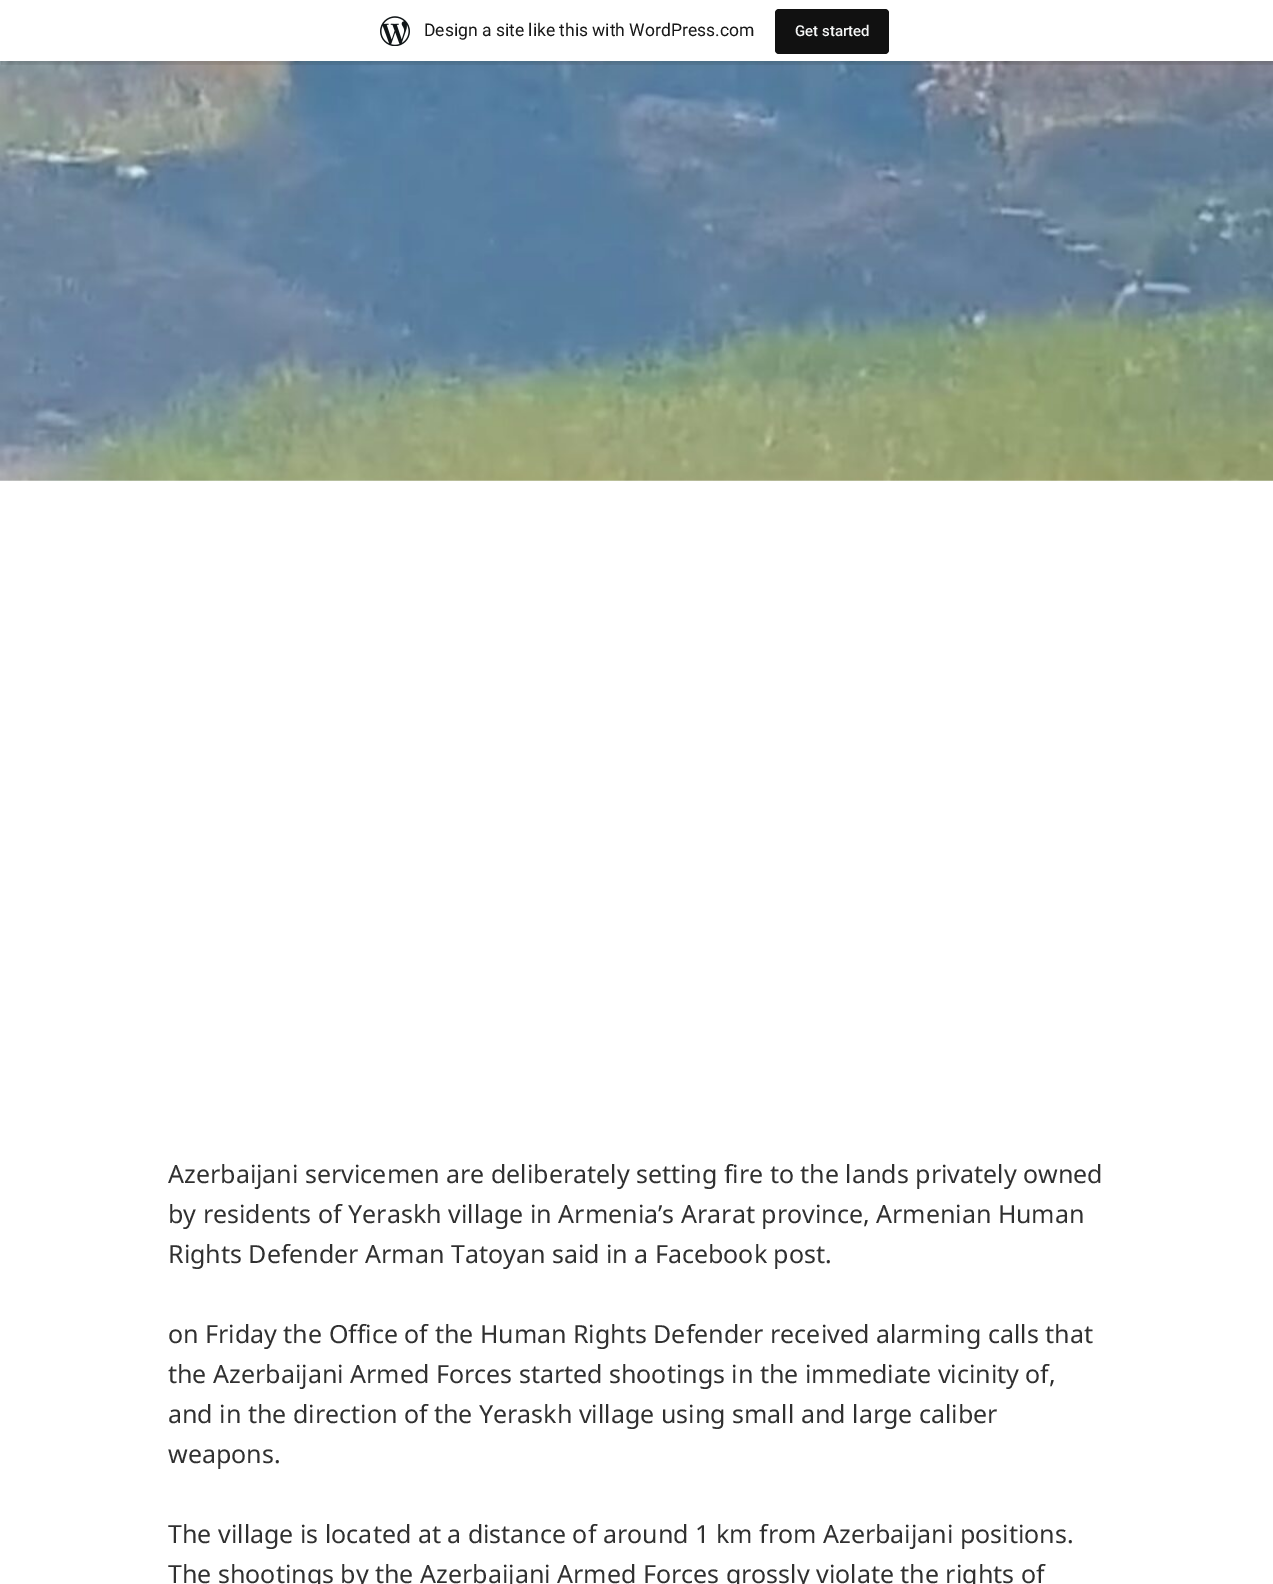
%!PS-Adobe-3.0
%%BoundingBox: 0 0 1273 1584
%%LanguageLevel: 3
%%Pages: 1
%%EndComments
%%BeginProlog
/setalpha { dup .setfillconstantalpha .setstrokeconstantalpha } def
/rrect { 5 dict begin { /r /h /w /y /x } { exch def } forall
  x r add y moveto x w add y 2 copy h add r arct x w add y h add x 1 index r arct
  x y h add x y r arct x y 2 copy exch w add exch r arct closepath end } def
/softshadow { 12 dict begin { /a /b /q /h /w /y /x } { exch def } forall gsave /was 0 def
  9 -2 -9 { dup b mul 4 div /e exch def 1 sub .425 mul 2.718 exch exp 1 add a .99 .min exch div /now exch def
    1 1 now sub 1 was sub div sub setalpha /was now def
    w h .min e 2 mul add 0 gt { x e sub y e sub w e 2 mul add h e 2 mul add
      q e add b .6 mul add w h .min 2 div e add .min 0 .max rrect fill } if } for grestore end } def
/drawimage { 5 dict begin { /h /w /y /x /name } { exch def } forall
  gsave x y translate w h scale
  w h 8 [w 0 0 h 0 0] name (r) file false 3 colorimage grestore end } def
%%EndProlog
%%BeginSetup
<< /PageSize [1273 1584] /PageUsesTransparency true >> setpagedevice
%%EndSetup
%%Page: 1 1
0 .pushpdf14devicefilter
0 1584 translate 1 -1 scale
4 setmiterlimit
1 setgray
0 0 1273 1584 rectfill
(images/2.raw) 0 61 1273 420 drawimage
0 setgray
0 1 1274 62 0 1 0.05 softshadow
0.08 setalpha
newpath 1 61 moveto 1 65 lineto 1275 65 lineto 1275 4 lineto 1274 4 lineto 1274 61 lineto closepath fill
1 setalpha
1 setgray
0 0 1273 61 rectfill
(images/1.raw) 380 16 30 30 drawimage
0.067 setgray
775 9 114 45 4 rrect fill
/Roboto-Regular [17.5 0 0 -17.5 0 0] selectfont
0.09 setgray
424 36 moveto (Design a site like this with WordPress.com) show
/Roboto-Medium [15 0 0 -15 0 0] selectfont
0.965 0.969 0.969 setrgbcolor
795 36 moveto (Get started) show
/NotoSans-Regular [25 0 0 -25 0 0] selectfont
0.188 setgray
168 1183 moveto (Azerbaijani servicemen are deliberately setting fire to the lands privately owned) show
168 1223 moveto (by residents of Yeraskh village in Armenia’s Ararat province, Armenian Human) show
168 1263 moveto (Rights Defender Arman Tatoyan said in a Facebook post.) show
168 1343 moveto (on Friday the Office of the Human Rights Defender received alarming calls that) show
168 1383 moveto (the Azerbaijani Armed Forces started shootings in the immediate vicinity of,) show
168 1423 moveto (and in the direction of the Yeraskh village using small and large caliber) show
168 1463 moveto (weapons.) show
168 1543 moveto (The village is located at a distance of around 1 km from Azerbaijani positions.) show
168 1583 moveto (The shootings by the Azerbaijani Armed Forces grossly violate the rights of) show
.poppdf14devicefilter showpage
%%EOF
